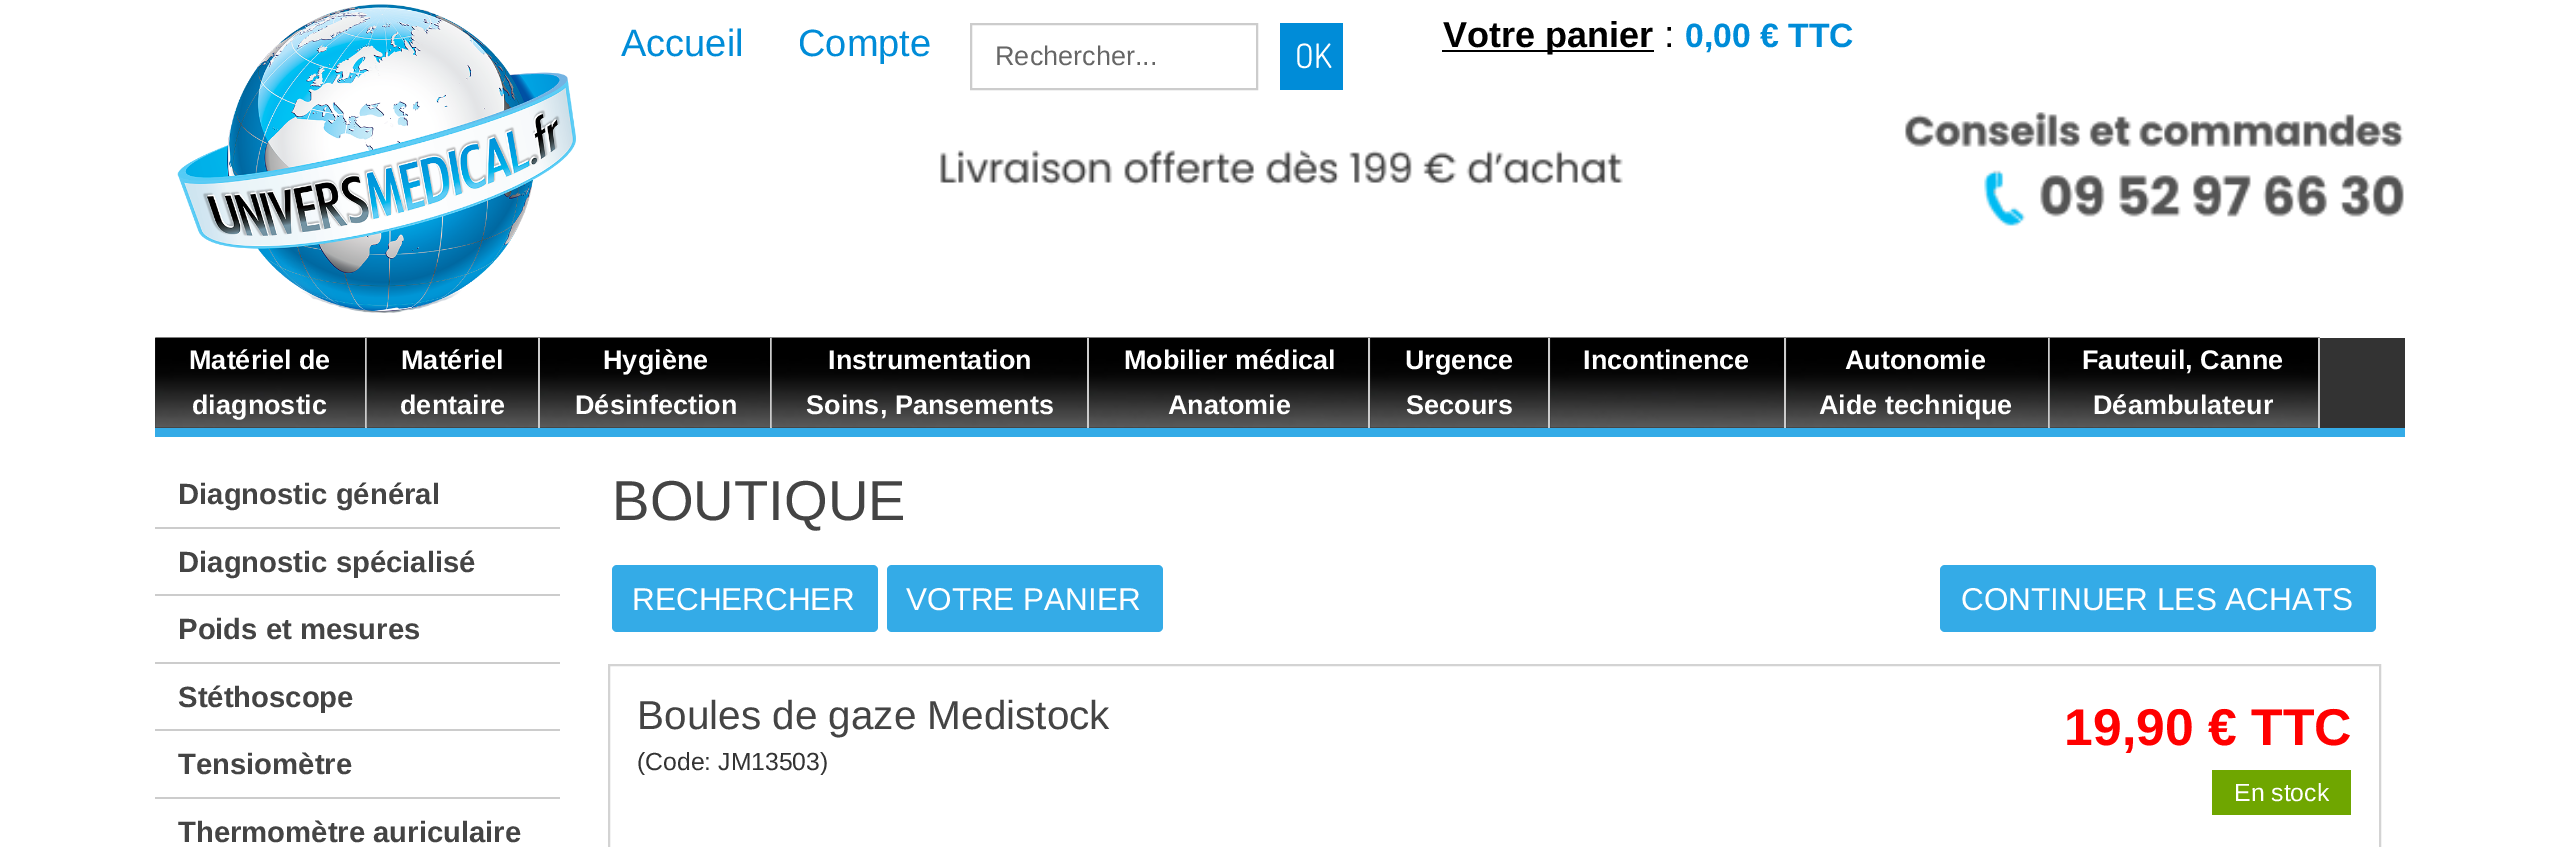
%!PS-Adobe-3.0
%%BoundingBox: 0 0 2559 847
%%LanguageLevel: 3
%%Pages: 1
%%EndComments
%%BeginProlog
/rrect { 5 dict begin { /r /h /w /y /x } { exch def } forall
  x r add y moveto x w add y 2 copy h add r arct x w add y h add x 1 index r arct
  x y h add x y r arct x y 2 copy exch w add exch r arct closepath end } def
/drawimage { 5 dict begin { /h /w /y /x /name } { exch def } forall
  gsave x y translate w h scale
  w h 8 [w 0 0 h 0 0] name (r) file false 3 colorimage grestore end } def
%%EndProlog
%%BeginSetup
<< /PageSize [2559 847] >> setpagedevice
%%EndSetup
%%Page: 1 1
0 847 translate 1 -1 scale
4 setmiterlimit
1 setgray
0 0 2559 847 rectfill
(images/1.raw) 940 112 1464 114 drawimage
(images/2.raw) 177 4 399 309 drawimage
0.8 setgray
2 setlinewidth
971 24 286 65 rectstroke
0 0.549 0.847 setrgbcolor
1280 23 63 67 rectfill
0 setgray
1442 50 212 2 rectfill
0.2 setgray
155 338 2250 90 rectfill
(images/3.raw) 155 337 212 91 drawimage
0.8 setgray
365 338 2 90 rectfill
(images/4.raw) 366 337 174 91 drawimage
538 338 2 90 rectfill
(images/5.raw) 540 337 232 91 drawimage
770 338 2 90 rectfill
(images/6.raw) 771 337 318 91 drawimage
1087 338 2 90 rectfill
(images/7.raw) 1089 337 282 91 drawimage
1368 338 2 90 rectfill
0.2 setgray
1370 338 1 90 rectfill
(images/8.raw) 1370 337 181 91 drawimage
0.8 setgray
1548 338 2 90 rectfill
0.2 setgray
1550 338 1 90 rectfill
(images/9.raw) 1550 337 237 91 drawimage
0.8 setgray
1784 338 2 90 rectfill
(images/10.raw) 1786 337 264 91 drawimage
2048 338 2 90 rectfill
(images/11.raw) 2049 337 271 91 drawimage
2318 338 2 90 rectfill
0.204 0.671 0.906 setrgbcolor
155 428 2250 9 rectfill
0.8 setgray
155 527 405 2 rectfill
155 594 405 2 rectfill
155 662 405 2 rectfill
155 729 405 2 rectfill
155 797 405 2 rectfill
0.204 0.671 0.906 setrgbcolor
612 565 266 67 5 rrect fill
887 565 276 67 5 rrect fill
1940 565 436 67 5 rrect fill
0.827 setgray
609 665 1771 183 rectstroke
0.435 0.651 0 setrgbcolor
2212 770 139 45 rectfill
/LiberationSans-Regular [38 0 0 -38 0 0] selectfont
0 0.549 0.847 setrgbcolor
621 56 moveto (Accueil) show
798 56 moveto (Compte) show
/LiberationSans-Regular [27 0 0 -27 0 0] selectfont
0.4 setgray
995 65 moveto (Rechercher...) show
/Dosis-Regular [33.75 0 0 -33.75 0 0] selectfont
1 setgray
1295 68 moveto (OK) show
/LiberationSans-Bold [36 0 0 -36 0 0] selectfont
0 setgray
1443 47 moveto (Votre panier) show
/LiberationSans-Regular [38 0 0 -38 0 0] selectfont
1664 47 moveto (:) show
/LiberationSans-Bold [33.75 0 0 -33.75 0 0] selectfont
0 0.549 0.847 setrgbcolor
1685 47 moveto (0,00 € TTC) show
/LiberationSans-Bold [27 0 0 -27 0 0] selectfont
1 setgray
189 369 moveto (Matériel de) show
192 414 moveto (diagnostic) show
401 369 moveto (Matériel) show
400 414 moveto (dentaire) show
603 369 moveto (Hygiène) show
575 414 moveto (Désinfection) show
828 369 moveto (Instrumentation) show
806 414 moveto (Soins, Pansements) show
1124 369 moveto (Mobilier médical) show
1168 414 moveto (Anatomie) show
1405 369 moveto (Urgence) show
1406 414 moveto (Secours) show
1583 369 moveto (Incontinence) show
1845 369 moveto (Autonomie) show
1819 414 moveto (Aide technique) show
2082 369 moveto (Fauteuil, Canne) show
2093 414 moveto (Déambulateur) show
/LiberationSans-Bold [29.25 0 0 -29.25 0 0] selectfont
0.267 setgray
178 504 moveto (Diagnostic général) show
178 572 moveto (Diagnostic spécialisé) show
178 639 moveto (Poids et mesures) show
178 707 moveto (Stéthoscope) show
178 774 moveto (Tensiomètre) show
178 842 moveto (Thermomètre auriculaire) show
/LiberationSans-Regular [56.25 0 0 -56.25 0 0] selectfont
612 520 moveto (BOUTIQUE) show
/LiberationSans-Regular [31.5 0 0 -31.5 0 0] selectfont
1 setgray
632 610 moveto (RECHERCHER) show
906 610 moveto (VOTRE PANIER) show
1961 610 moveto (CONTINUER LES ACHATS) show
/LiberationSans-Regular [40.5 0 0 -40.5 0 0] selectfont
0.267 setgray
637 729 moveto (Boules de gaze Medistock) show
/LiberationSans-Regular [24.75 0 0 -24.75 0 0] selectfont
0.2 setgray
637 770 moveto (\(Code: JM13503\)) show
/LiberationSans-Bold [51.75 0 0 -51.75 0 0] selectfont
1 0 0 setrgbcolor
2064 745 moveto (19,90 € TTC) show
/LiberationSans-Regular [24.75 0 0 -24.75 0 0] selectfont
1 setgray
2234 801 moveto (En stock) show
showpage
%%EOF
